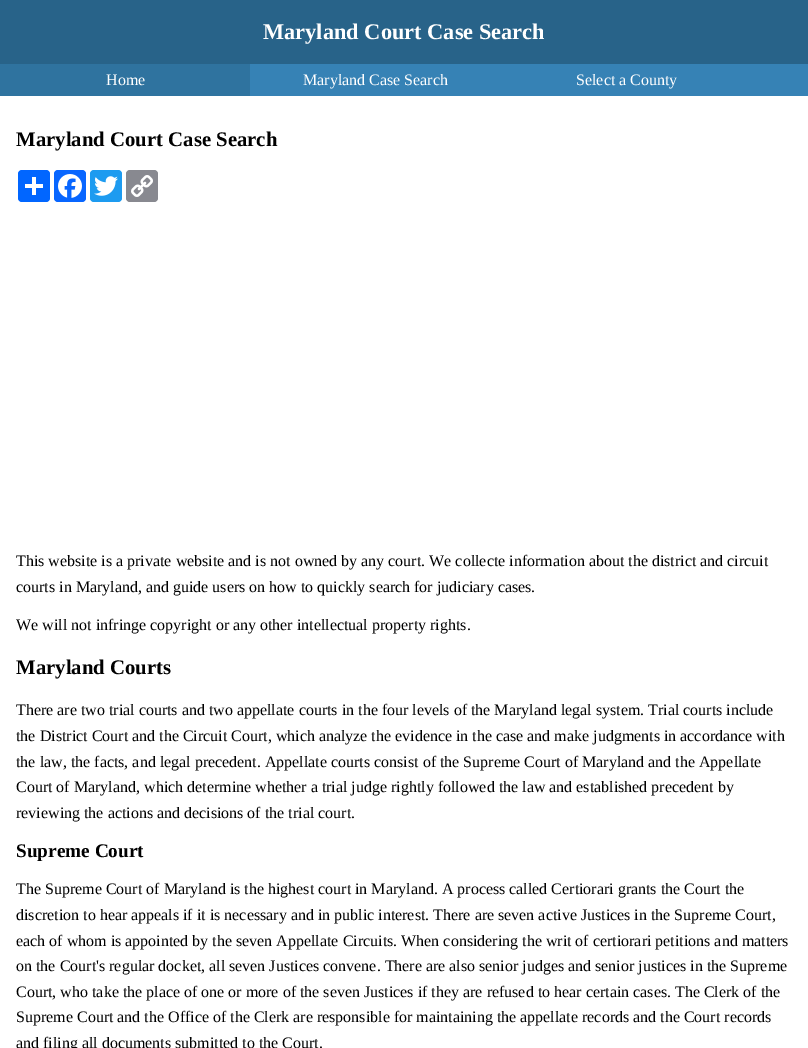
%!PS-Adobe-3.0
%%BoundingBox: 0 0 808 1048
%%LanguageLevel: 3
%%Pages: 1
%%EndComments
%%BeginProlog
/rrect { 5 dict begin { /r /h /w /y /x } { exch def } forall
  x r add y moveto x w add y 2 copy h add r arct x w add y h add x 1 index r arct
  x y h add x y r arct x y 2 copy exch w add exch r arct closepath end } def
/drawimage { 5 dict begin { /h /w /y /x /name } { exch def } forall
  gsave x y translate w h scale
  w h 8 [w 0 0 h 0 0] name (r) file false 3 colorimage grestore end } def
%%EndProlog
%%BeginSetup
<< /PageSize [808 1048] >> setpagedevice
%%EndSetup
%%Page: 1 1
0 1048 translate 1 -1 scale
4 setmiterlimit
1 setgray
0 0 808 1048 rectfill
0.157 0.388 0.537 setrgbcolor
0 0 808 64 rectfill
0.212 0.51 0.71 setrgbcolor
250 64 558 32 rectfill
0.184 0.451 0.624 setrgbcolor
0 64 250 32 rectfill
0.004 0.4 1 setrgbcolor
18 170 32 32 4 rrect fill
1 setgray
32 177 4 18 rectfill
25 184 18 4 rectfill
0.031 0.4 1 setrgbcolor
54 170 32 32 4 rrect fill
(images/1.raw) 58 174 24 24 drawimage
0.114 0.608 0.941 setrgbcolor
90 170 32 32 4 rrect fill
(images/2.raw) 94 176 24 20 drawimage
0.533 0.537 0.565 setrgbcolor
126 170 32 32 4 rrect fill
(images/3.raw) 131 175 22 22 drawimage
/LiberationSerif-Bold [22.4 0 0 -22.4 0 0] selectfont
1 setgray
263 39 moveto (Maryland Court Case Search) show
/LiberationSerif-Regular [16 0 0 -16 0 0] selectfont
106 85 moveto (Home) show
303 85 moveto (Maryland Case Search) show
576 85 moveto (Select a County) show
/LiberationSerif-Bold [20.75 0 0 -20.75 0 0] selectfont
0 setgray
16 146 moveto (Maryland Court Case Search) show
/LiberationSerif-Regular [16 0 0 -16 0 0] selectfont
16 566 moveto (This website is a private website and is not owned by any court. We collecte information about the district and circuit) show
16 592 moveto (courts in Maryland, and guide users on how to quickly search for judiciary cases.) show
16 630 moveto (We will not infringe copyright or any other intellectual property rights.) show
/LiberationSerif-Bold [20.75 0 0 -20.75 0 0] selectfont
16 674 moveto (Maryland Courts) show
/LiberationSerif-Regular [16 0 0 -16 0 0] selectfont
16 715 moveto (There are two trial courts and two appellate courts in the four levels of the Maryland legal system. Trial courts include) show
16 741 moveto (the District Court and the Circuit Court, which analyze the evidence in the case and make judgments in accordance with) show
16 767 moveto (the law, the facts, and legal precedent. Appellate courts consist of the Supreme Court of Maryland and the Appellate) show
16 792 moveto (Court of Maryland, which determine whether a trial judge rightly followed the law and established precedent by) show
16 818 moveto (reviewing the actions and decisions of the trial court.) show
/LiberationSerif-Bold [19.25 0 0 -19.25 0 0] selectfont
16 857 moveto (Supreme Court) show
/LiberationSerif-Regular [16 0 0 -16 0 0] selectfont
16 894 moveto (The Supreme Court of Maryland is the highest court in Maryland. A process called Certiorari grants the Court the) show
16 920 moveto (discretion to hear appeals if it is necessary and in public interest. There are seven active Justices in the Supreme Court,) show
16 946 moveto (each of whom is appointed by the seven Appellate Circuits. When considering the writ of certiorari petitions and matters) show
16 971 moveto (on the Court's regular docket, all seven Justices convene. There are also senior judges and senior justices in the Supreme) show
16 997 moveto (Court, who take the place of one or more of the seven Justices if they are refused to hear certain cases. The Clerk of the) show
16 1022 moveto (Supreme Court and the Office of the Clerk are responsible for maintaining the appellate records and the Court records) show
16 1048 moveto (and filing all documents submitted to the Court.) show
showpage
%%EOF
